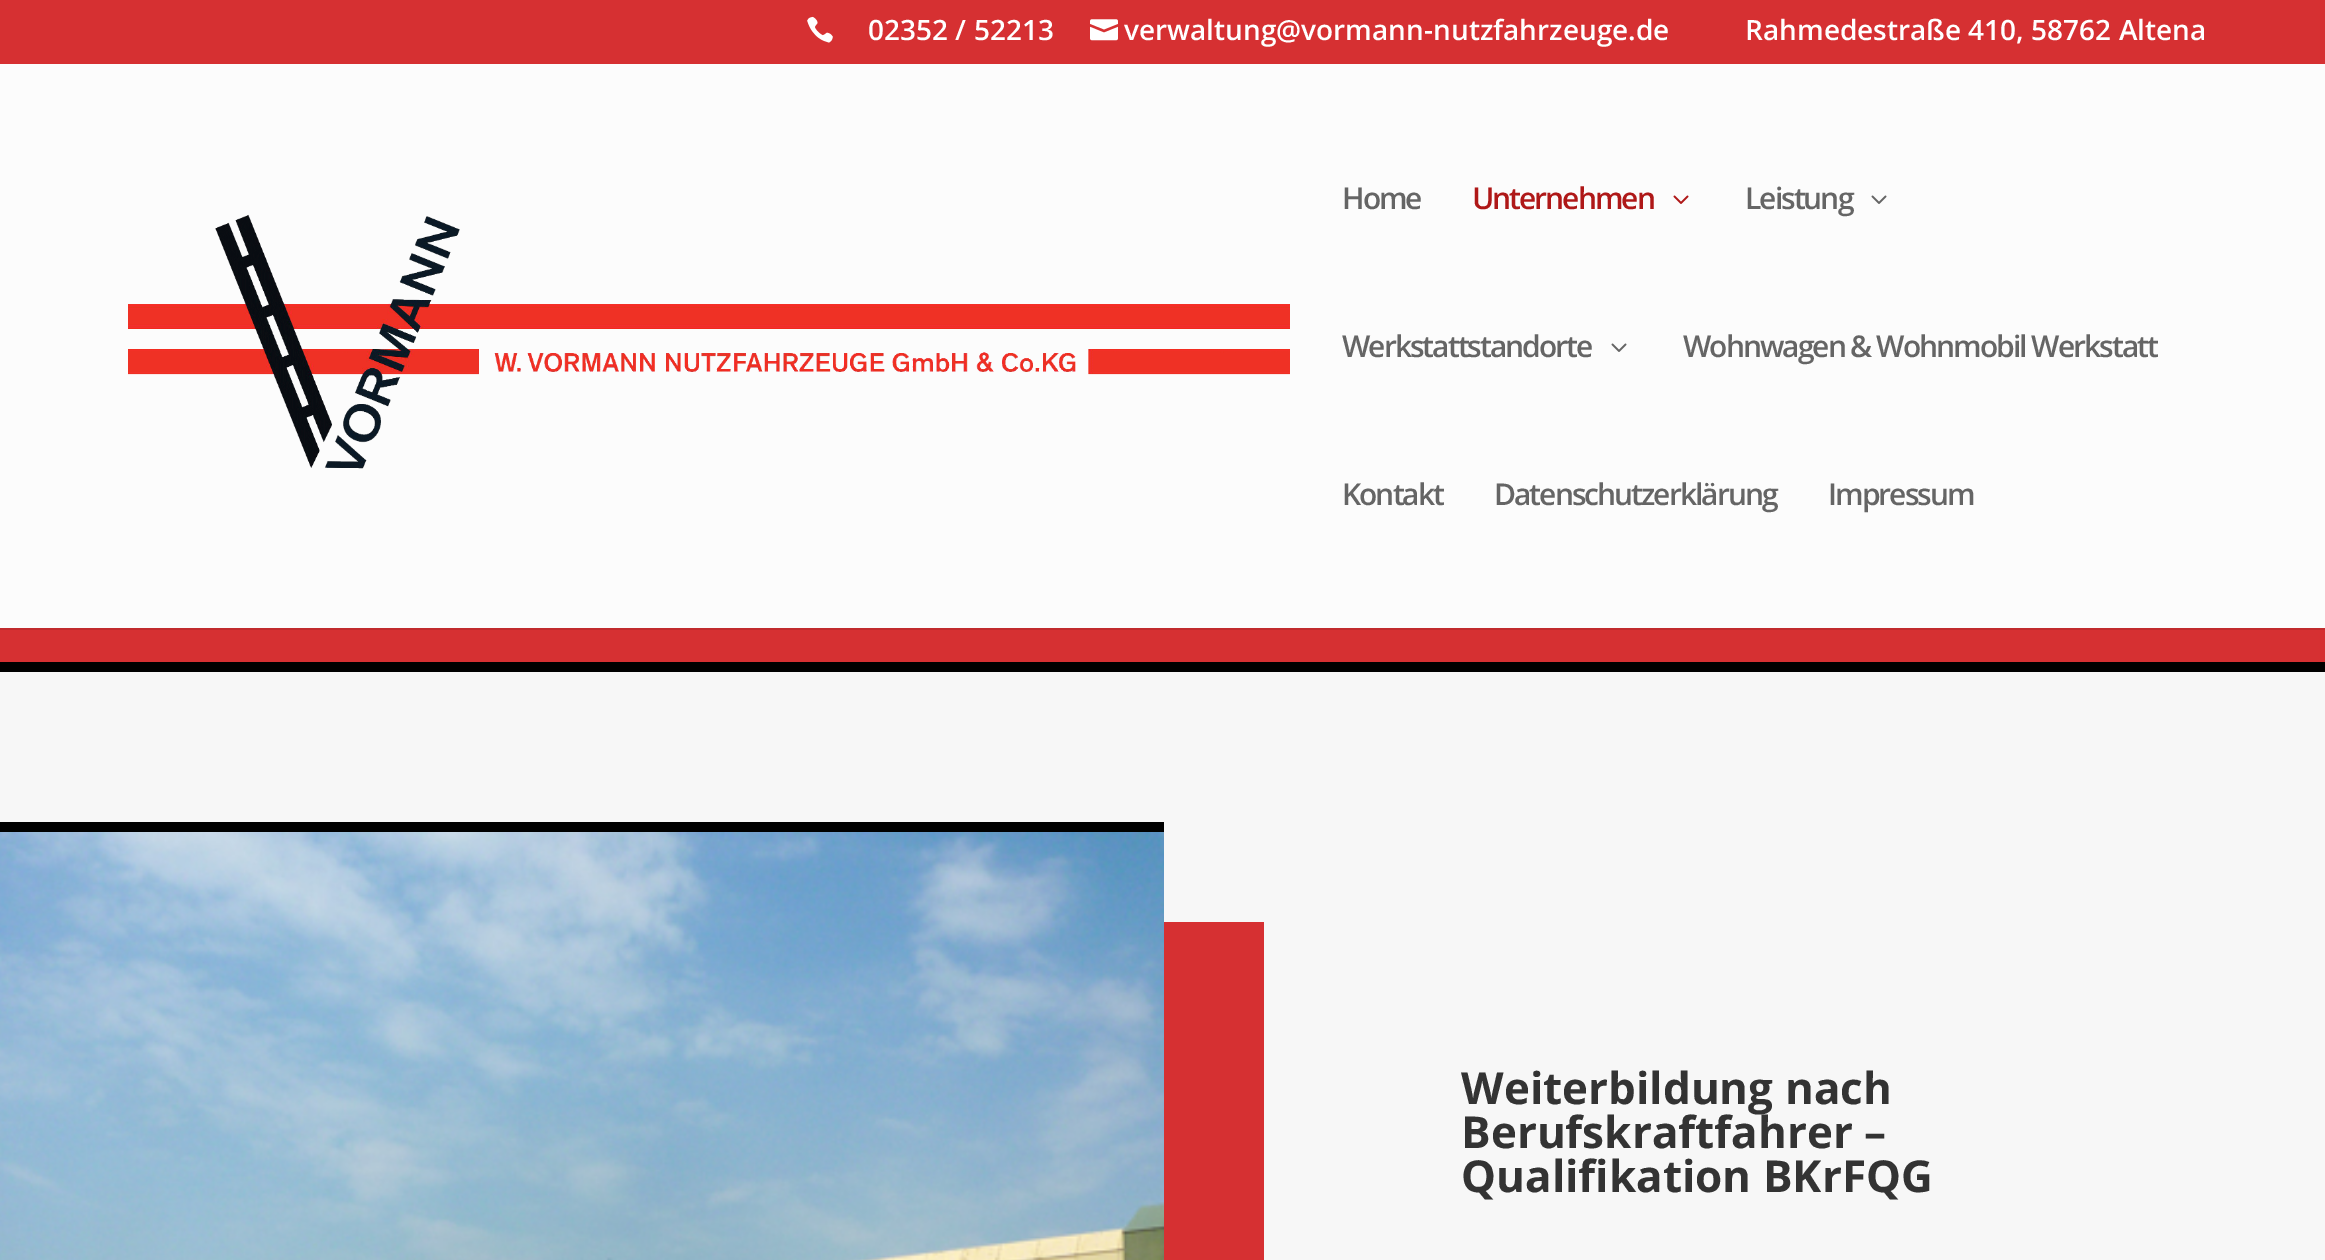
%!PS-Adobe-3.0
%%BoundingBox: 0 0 2325 1260
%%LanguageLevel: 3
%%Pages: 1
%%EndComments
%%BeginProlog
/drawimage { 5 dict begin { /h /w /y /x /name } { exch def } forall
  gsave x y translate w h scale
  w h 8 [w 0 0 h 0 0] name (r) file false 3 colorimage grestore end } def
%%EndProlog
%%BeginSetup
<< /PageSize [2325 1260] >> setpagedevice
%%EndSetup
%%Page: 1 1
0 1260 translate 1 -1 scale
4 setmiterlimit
0.839 0.188 0.196 setrgbcolor
0 0 2325 1260 rectfill
(images/1.raw) 807 16 26 27 drawimage
(images/2.raw) 1090 19 28 22 drawimage
0.757 0.169 0.176 setrgbcolor
0 628 2325 2 rectfill
0.988 setgray
0 64 2325 564 rectfill
(images/3.raw) 128 214 1162 255 drawimage
(images/4.raw) 1673 195 16 9 drawimage
(images/5.raw) 1871 195 16 9 drawimage
(images/5.raw) 1611 343 16 9 drawimage
0 setgray
0 662 2325 10 rectfill
0.969 setgray
0 672 2325 588 rectfill
0.839 0.188 0.196 setrgbcolor
newpath 100 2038 moveto 100 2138 lineto 1264 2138 lineto 1264 922 lineto 1164 922 lineto 1164 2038 lineto closepath fill
0 setgray
0 822 1164 10 rectfill
(images/6.raw) 0 832 1164 428 drawimage
/OpenSans-SemiBold [28 0 0 -28 0 0] selectfont
1 setgray
868 40 moveto (02352 / 52213) show
1124 40 moveto (verwaltung@vormann-nutzfahrzeuge.de) show
1745 40 moveto (Rahmedestraße 410, 58762 Altena) show
/OpenSans-SemiBold [30 0 0 -30 0 0] selectfont
0.396 setgray
1342 209 moveto -2 0 (Home) ashow
0.686 0.094 0.094 setrgbcolor
1472 209 moveto -2 0 (Unternehmen) ashow
0.396 setgray
1745 209 moveto -2 0 (Leistung) ashow
1342 357 moveto -2 0 (Werkstattstandorte) ashow
1683 357 moveto -2 0 (Wohnwagen & Wohnmobil Werkstatt) ashow
1342 505 moveto -2 0 (Kontakt) ashow
1494 505 moveto -2 0 (Datenschutzerklärung) ashow
1828 505 moveto -2 0 (Impressum) ashow
/OpenSans-Bold [44 0 0 -44 0 0] selectfont
0.2 setgray
1461 1104 moveto (Weiterbildung nach) show
1461 1148 moveto (Berufskraftfahrer –) show
1461 1192 moveto (Qualifikation BKrFQG) show
showpage
%%EOF
